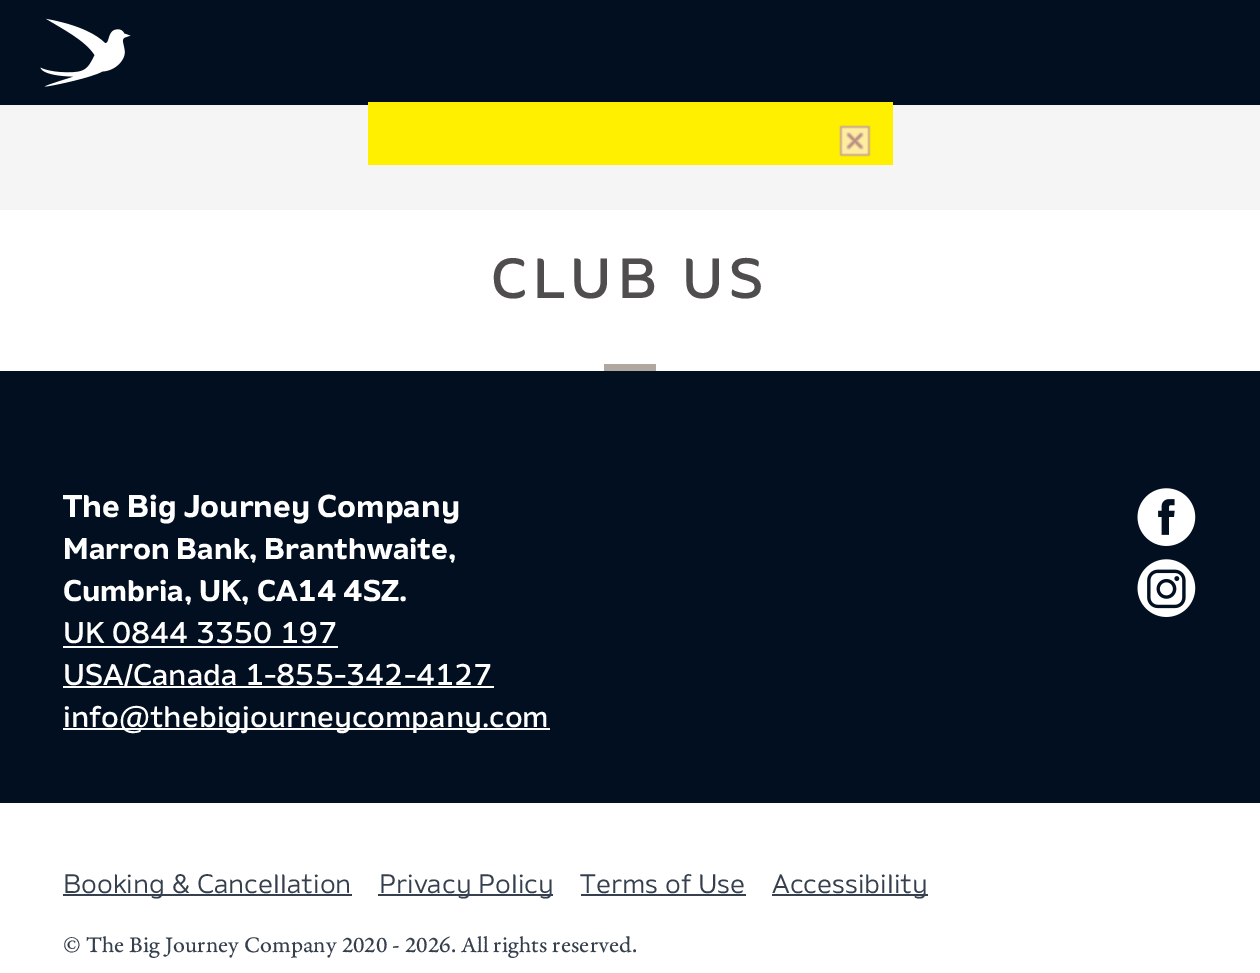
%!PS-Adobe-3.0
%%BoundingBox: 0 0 1260 973
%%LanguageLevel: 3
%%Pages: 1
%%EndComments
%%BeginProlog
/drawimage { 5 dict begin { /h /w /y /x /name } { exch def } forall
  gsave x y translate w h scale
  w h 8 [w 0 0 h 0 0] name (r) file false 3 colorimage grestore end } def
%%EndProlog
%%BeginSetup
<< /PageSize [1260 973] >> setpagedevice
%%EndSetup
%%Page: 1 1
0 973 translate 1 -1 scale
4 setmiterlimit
1 setgray
0 0 1260 973 rectfill
0.008 0.059 0.125 setrgbcolor
0 0 1260 105 rectfill
0.961 setgray
0 105 1260 105 rectfill
1 0.941 0 setrgbcolor
368 102 525 63 rectfill
(images/1.raw) 839 125 32 32 drawimage
(images/2.raw) 40 18 91 69 drawimage
0.686 0.655 0.627 setrgbcolor
604 364 52 7 rectfill
0.008 0.059 0.125 setrgbcolor
0 371 1260 432 rectfill
1 setgray
63 646 275 2 rectfill
63 686 431 2 rectfill
63 728 487 2 rectfill
(images/3.raw) 1137 488 59 58 drawimage
(images/4.raw) 1137 559 59 58 drawimage
0.208 0.247 0.302 setrgbcolor
63 894 289 2 rectfill
378 894 175 2 rectfill
581 894 165 2 rectfill
772 894 156 2 rectfill
/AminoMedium-Regular [56.5 0 0 -56.5 0 0] selectfont
0.31 0.302 0.302 setrgbcolor
491 298 moveto 5.75 0 (CLUB US) ashow
/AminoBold-Regular [31.5 0 0 -31.5 0 0] selectfont
1 setgray
63 517 moveto (The Big Journey Company) show
/AminoBold-Regular [29.9 0 0 -29.9 0 0] selectfont
63 559 moveto (Marron Bank, Branthwaite,) show
63 601 moveto (Cumbria, UK, CA14 4SZ.) show
/AminoMedium-Regular [29.9 0 0 -29.9 0 0] selectfont
63 643 moveto (UK 0844 3350 197) show
63 685 moveto (USA/Canada 1-855-342-4127) show
63 727 moveto (info@thebigjourneycompany.com) show
/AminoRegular-Regular [26.75 0 0 -26.75 0 0] selectfont
0.208 0.247 0.302 setrgbcolor
63 893 moveto (Booking & Cancellation) show
379 893 moveto (Privacy Policy) show
580 893 moveto (Terms of Use) show
772 893 moveto (Accessibility) show
/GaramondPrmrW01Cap-Regular [23.6 0 0 -23.6 0 0] selectfont
63 952 moveto (© The Big Journey Company 2020 - 2026. All rights reserved.) show
showpage
%%EOF
